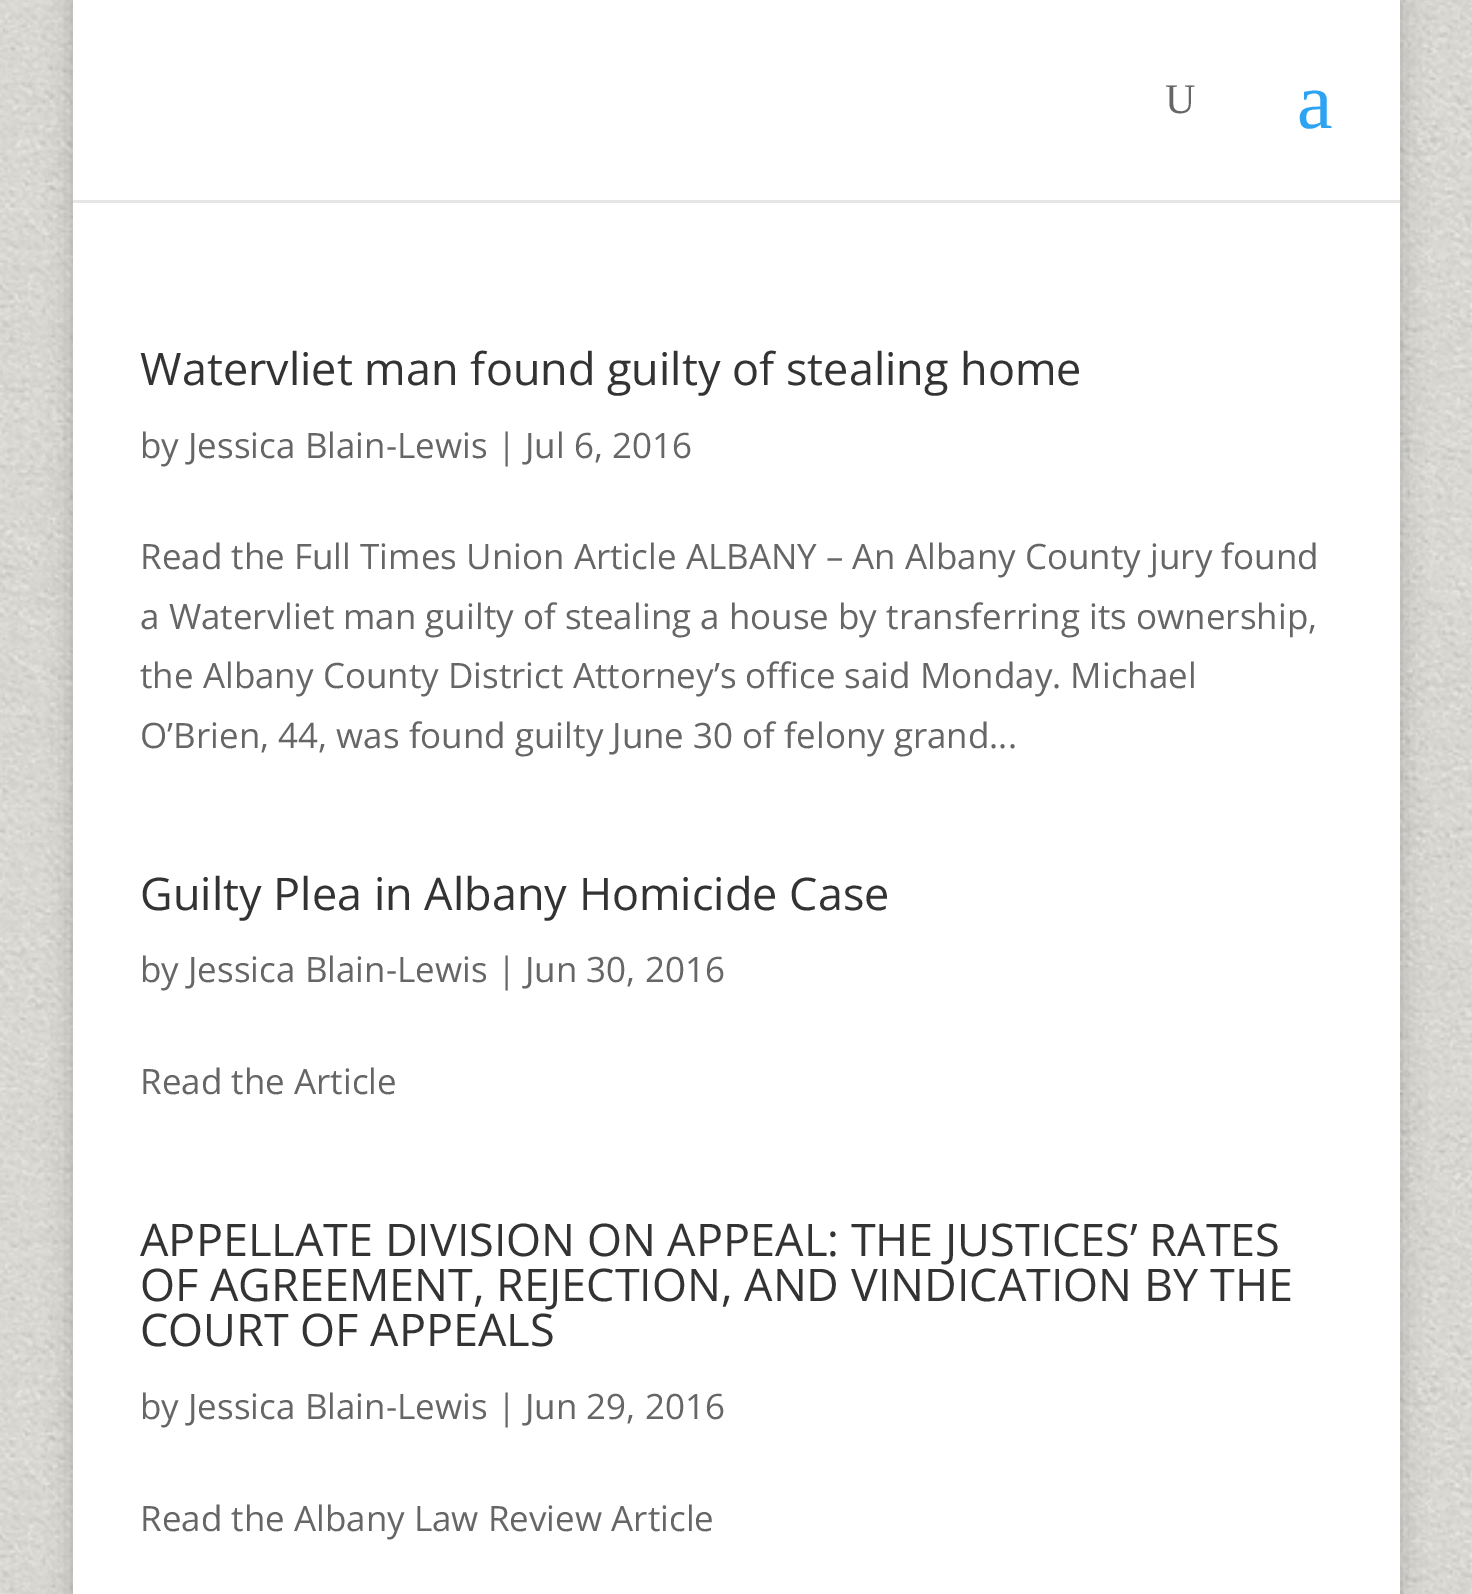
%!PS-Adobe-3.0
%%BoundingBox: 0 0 1472 1594
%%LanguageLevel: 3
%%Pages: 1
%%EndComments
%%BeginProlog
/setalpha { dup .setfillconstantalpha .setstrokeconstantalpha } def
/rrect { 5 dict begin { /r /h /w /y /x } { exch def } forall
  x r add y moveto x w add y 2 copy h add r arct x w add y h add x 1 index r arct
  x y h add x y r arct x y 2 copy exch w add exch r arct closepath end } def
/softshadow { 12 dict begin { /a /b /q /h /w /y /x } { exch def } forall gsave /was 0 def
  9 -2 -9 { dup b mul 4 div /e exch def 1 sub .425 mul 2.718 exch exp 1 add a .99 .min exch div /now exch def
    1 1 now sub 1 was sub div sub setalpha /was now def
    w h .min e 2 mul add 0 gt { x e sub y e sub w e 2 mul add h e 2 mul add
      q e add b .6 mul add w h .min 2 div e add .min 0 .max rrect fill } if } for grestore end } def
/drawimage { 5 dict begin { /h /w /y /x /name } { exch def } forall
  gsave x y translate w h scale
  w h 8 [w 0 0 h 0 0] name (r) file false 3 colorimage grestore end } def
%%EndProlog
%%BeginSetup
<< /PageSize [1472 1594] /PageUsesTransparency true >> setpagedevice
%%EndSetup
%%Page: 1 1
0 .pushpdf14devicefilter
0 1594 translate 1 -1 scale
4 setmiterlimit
1 setgray
0 0 1472 1594 rectfill
(images/1.raw) 0 0 1472 1594 drawimage
0 setgray
73 0 1327 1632 0 12.5 0.2 softshadow
0.902 setgray
73 200 1327 3 rectfill
1 setgray
73 0 1327 200 rectfill
73 203 1327 1391 rectfill
/LiberationSerif-Regular [42 0 0 -42 0 0] selectfont
0.4 setgray
1165 113 moveto (U) show
/LiberationSerif-Regular [80 0 0 -80 0 0] selectfont
0.18 0.639 0.949 setrgbcolor
1297 128 moveto (a) show
/OpenSans-Regular [45 0 0 -45 0 0] selectfont
0.2 setgray
140 385 moveto (Watervliet man found guilty of stealing home) show
/OpenSans-Regular [35 0 0 -35 0 0] selectfont
0.4 setgray
140 458 moveto (by Jessica Blain-Lewis | Jul 6, 2016) show
140 569 moveto (Read the Full Times Union Article ALBANY – An Albany County jury found) show
140 629 moveto (a Watervliet man guilty of stealing a house by transferring its ownership,) show
140 688 moveto (the Albany County District Attorney’s office said Monday. Michael) show
140 748 moveto (O’Brien, 44, was found guilty June 30 of felony grand...) show
/OpenSans-Regular [45 0 0 -45 0 0] selectfont
0.2 setgray
140 910 moveto (Guilty Plea in Albany Homicide Case) show
/OpenSans-Regular [35 0 0 -35 0 0] selectfont
0.4 setgray
140 982 moveto (by Jessica Blain-Lewis | Jun 30, 2016) show
140 1094 moveto (Read the Article) show
/OpenSans-Regular [45 0 0 -45 0 0] selectfont
0.2 setgray
140 1256 moveto (APPELLATE DIVISION ON APPEAL: THE JUSTICES’ RATES) show
140 1301 moveto (OF AGREEMENT, REJECTION, AND VINDICATION BY THE) show
140 1346 moveto (COURT OF APPEALS) show
/OpenSans-Regular [35 0 0 -35 0 0] selectfont
0.4 setgray
140 1419 moveto (by Jessica Blain-Lewis | Jun 29, 2016) show
140 1531 moveto (Read the Albany Law Review Article) show
.poppdf14devicefilter showpage
%%EOF
